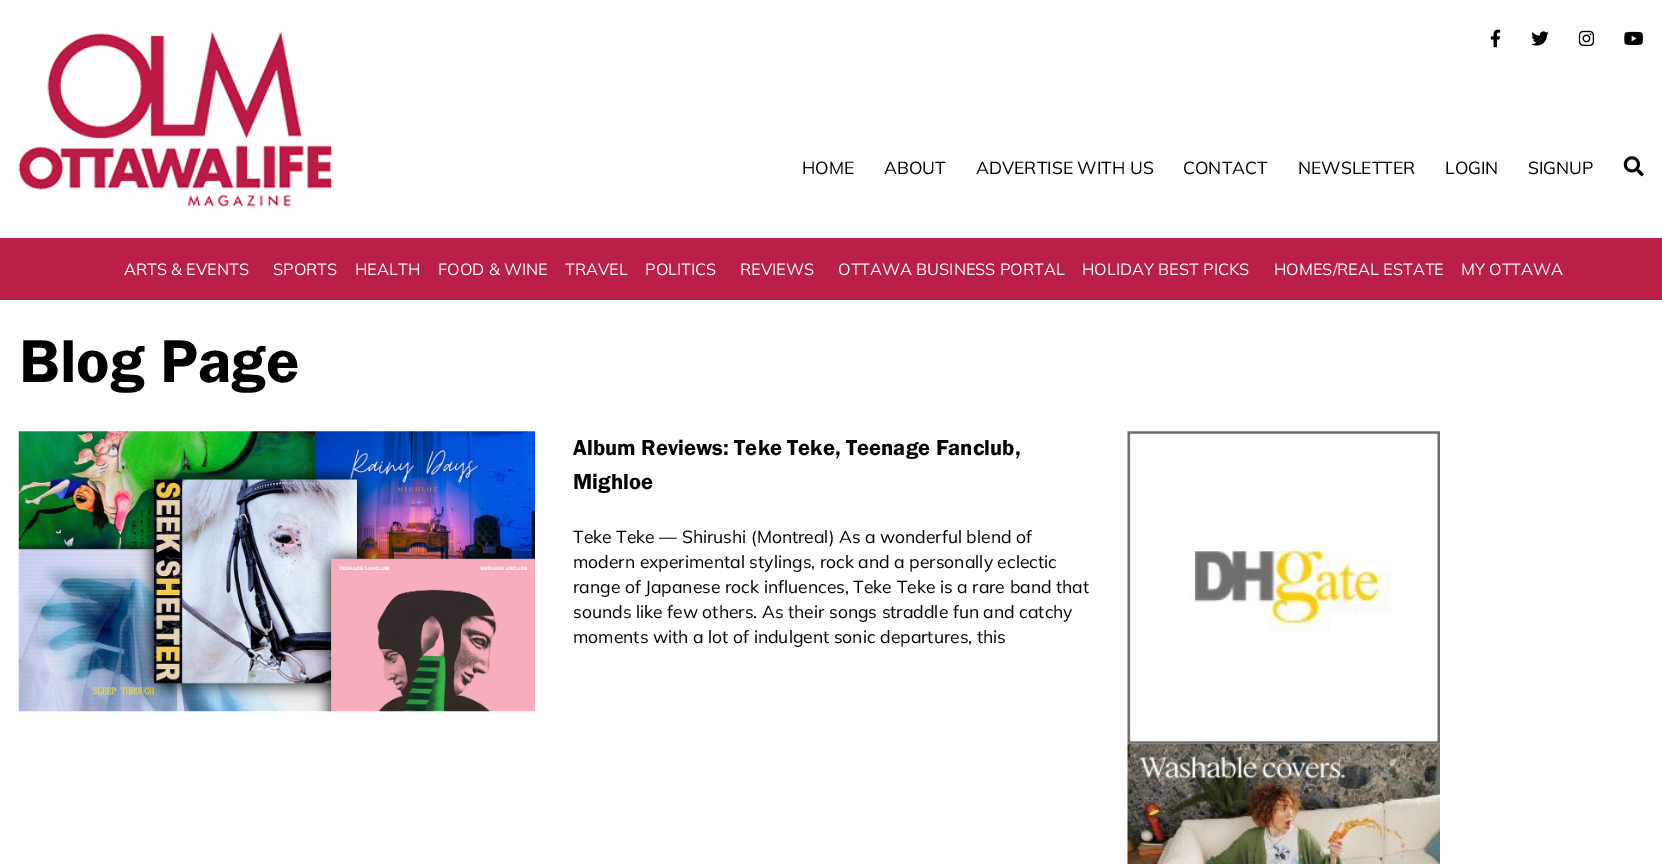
%!PS-Adobe-3.0
%%BoundingBox: 0 0 1662 864
%%LanguageLevel: 3
%%Pages: 1
%%EndComments
%%BeginProlog
/drawimage { 5 dict begin { /h /w /y /x /name } { exch def } forall
  gsave x y translate w h scale
  w h 8 [w 0 0 h 0 0] name (r) file false 3 colorimage grestore end } def
%%EndProlog
%%BeginSetup
<< /PageSize [1662 864] >> setpagedevice
%%EndSetup
%%Page: 1 1
0 864 translate 1 -1 scale
4 setmiterlimit
1 setgray
0 0 1662 864 rectfill
(images/1.raw) 18 31 314 176 drawimage
(images/2.raw) 1490 29 11 19 drawimage
(images/3.raw) 1531 31 18 15 drawimage
(images/4.raw) 1578 30 17 17 drawimage
(images/5.raw) 1624 31 19 14 drawimage
(images/6.raw) 1623 156 21 21 drawimage
0.729 0.122 0.282 setrgbcolor
0 238 1662 62 rectfill
(images/7.raw) 18 431 517 281 drawimage
(images/8.raw) 1127 431 313 313 drawimage
(images/9.raw) 1127 743 313 121 drawimage
/Mulish-Regular [17.5 0 0 -17.5 0 0] selectfont
0 setgray
802 174 moveto (HOME) show
884 174 moveto (ABOUT) show
976 174 moveto (ADVERTISE WITH US) show
1183 174 moveto (CONTACT) show
1298 174 moveto (NEWSLETTER) show
1445 174 moveto (LOGIN) show
1528 174 moveto (SIGNUP) show
/Mulish-Regular [16.25 0 0 -16.25 0 0] selectfont
1 setgray
124 275 moveto (ARTS & EVENTS) show
273 275 moveto (SPORTS) show
355 275 moveto (HEALTH) show
438 275 moveto (FOOD & WINE) show
565 275 moveto (TRAVEL) show
645 275 moveto (POLITICS) show
740 275 moveto (REVIEWS) show
838 275 moveto (OTTAWA BUSINESS PORTAL) show
1082 275 moveto (HOLIDAY BEST PICKS) show
1274 275 moveto (HOMES/REAL ESTATE) show
1461 275 moveto (MY OTTAWA) show
/FranklinGothic-Regular [62.5 0 0 -62.5 0 0] selectfont
0 setgray
19 382 moveto (Blog Page) show
/FranklinGothic-Regular [22.5 0 0 -22.5 0 0] selectfont
573 455 moveto (Album Reviews: Teke Teke, Teenage Fanclub,) show
573 489 moveto (Mighloe) show
/Mulish-Regular [17.5 0 0 -17.5 0 0] selectfont
573 543 moveto (Teke Teke — Shirushi \(Montreal\) As a wonderful blend of) show
573 568 moveto (modern experimental stylings, rock and a personally eclectic) show
573 593 moveto (range of Japanese rock influences, Teke Teke is a rare band that) show
573 618 moveto (sounds like few others. As their songs straddle fun and catchy) show
573 643 moveto (moments with a lot of indulgent sonic departures, this) show
showpage
%%EOF
